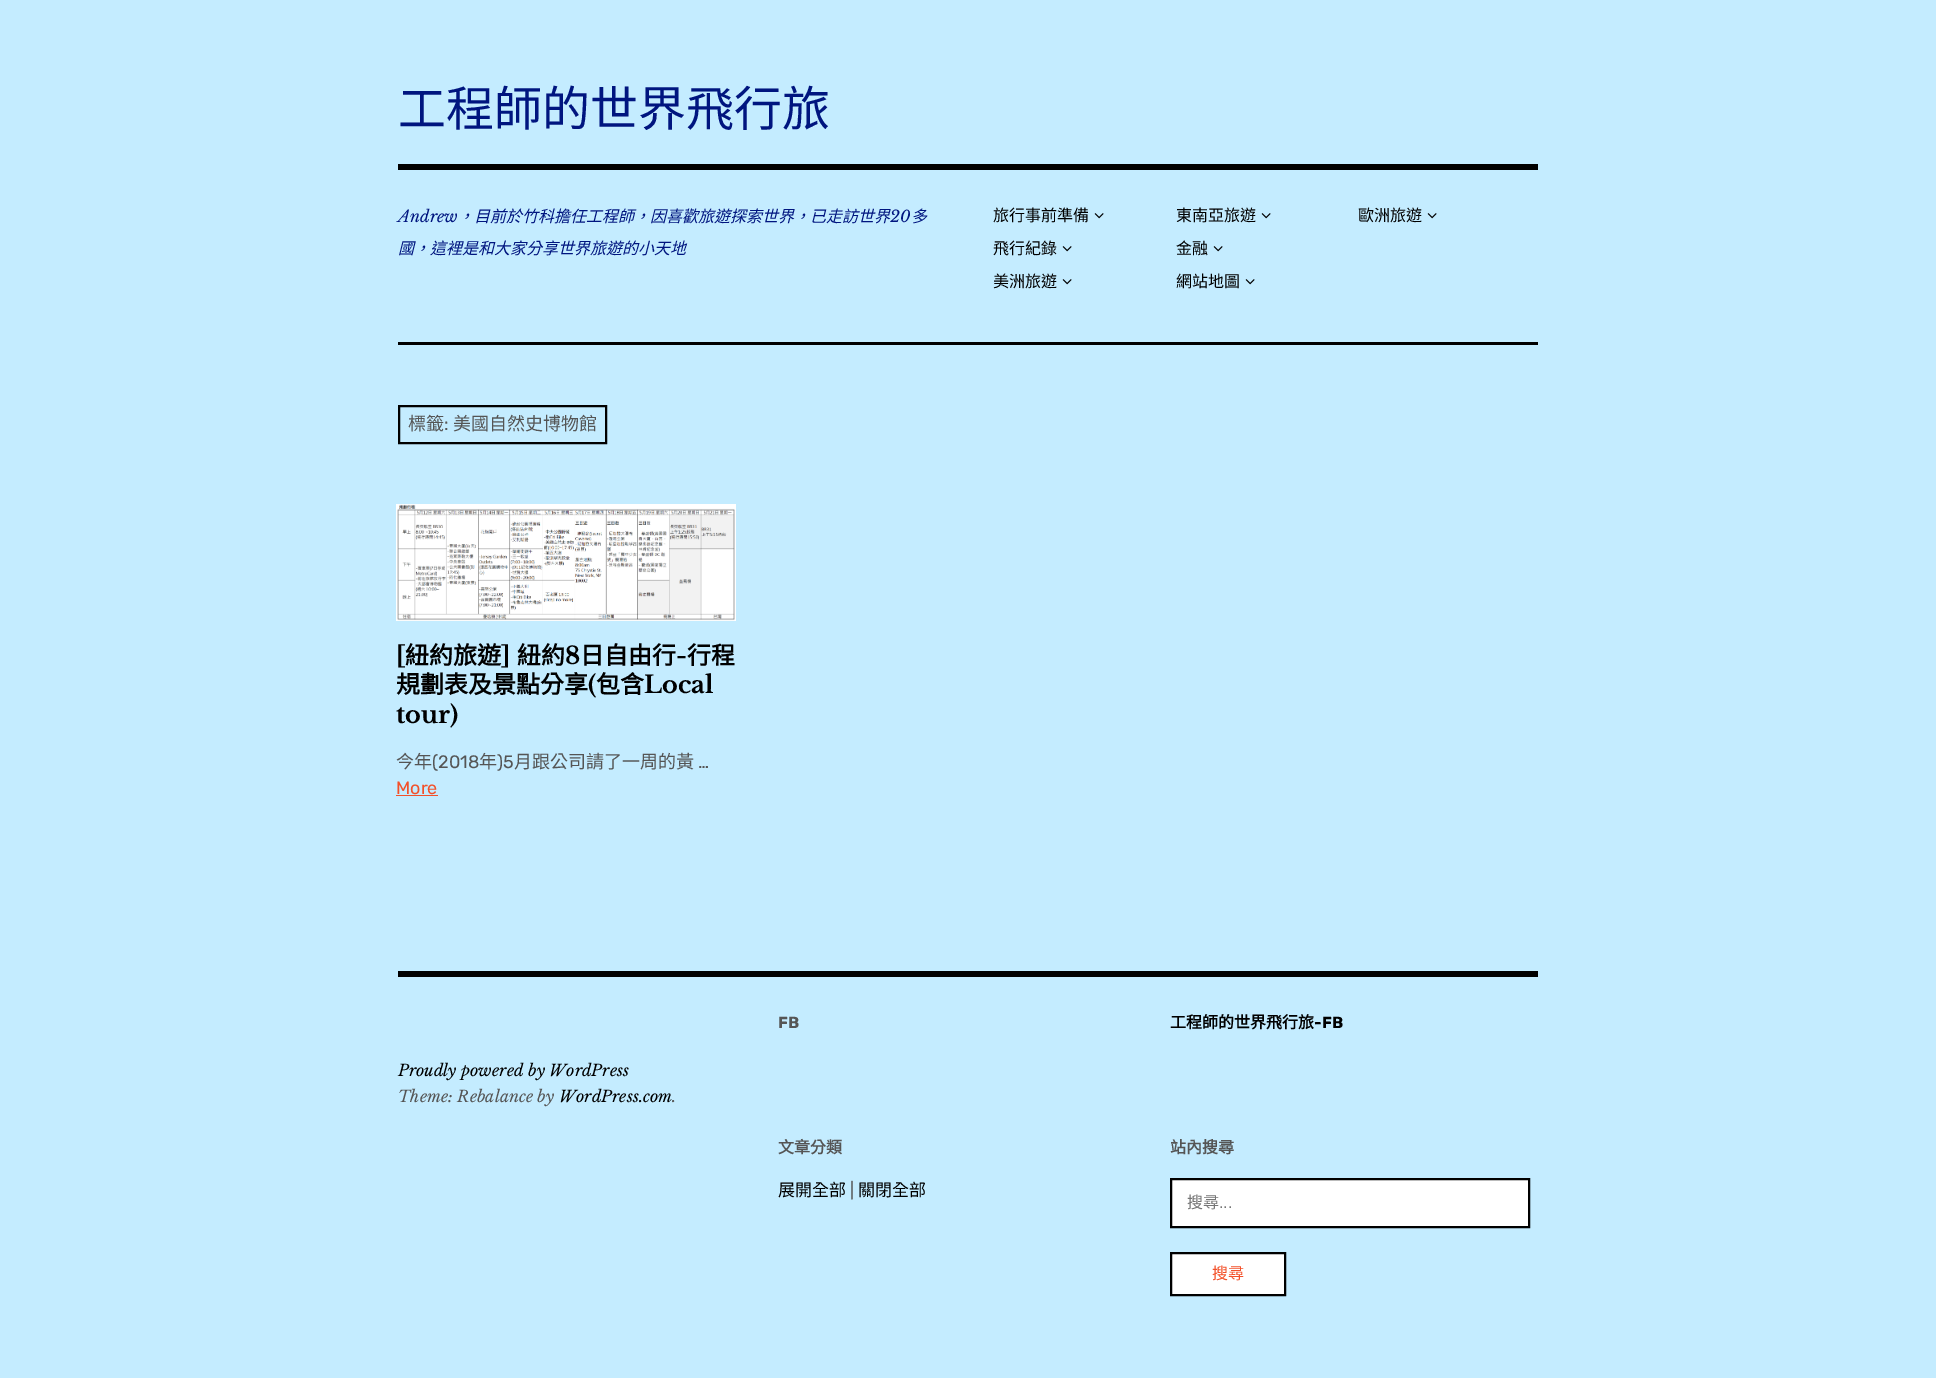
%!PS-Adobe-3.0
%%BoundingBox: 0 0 1936 1378
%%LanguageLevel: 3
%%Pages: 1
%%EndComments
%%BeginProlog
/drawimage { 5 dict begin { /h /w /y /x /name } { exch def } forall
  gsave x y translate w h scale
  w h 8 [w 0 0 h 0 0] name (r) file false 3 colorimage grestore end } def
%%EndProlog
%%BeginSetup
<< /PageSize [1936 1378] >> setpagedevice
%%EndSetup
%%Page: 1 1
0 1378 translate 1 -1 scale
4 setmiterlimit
0.769 0.925 1 setrgbcolor
0 0 1936 1378 rectfill
0 setgray
398 164 1140 6 rectfill
(images/1.raw) 1094 213 10 6 drawimage
(images/1.raw) 1062 246 10 6 drawimage
(images/1.raw) 1062 279 10 6 drawimage
(images/1.raw) 1261 213 10 6 drawimage
(images/1.raw) 1213 246 10 6 drawimage
(images/1.raw) 1245 279 10 6 drawimage
(images/1.raw) 1427 213 10 6 drawimage
398 342 1140 3 rectfill
2 setlinewidth
399 406 207 37 rectstroke
(images/2.raw) 396 504 340 117 drawimage
0.953 0.314 0.161 setrgbcolor
396 795 42 1 rectfill
0 setgray
398 971 1140 6 rectfill
1 setgray
newpath 1171 1179 moveto 1529 1179 lineto 1529 1227 lineto 1171 1227 lineto closepath gsave fill grestore
0 setgray
stroke
1 setgray
newpath 1171 1253 moveto 1285 1253 lineto 1285 1295 lineto 1171 1295 lineto closepath gsave fill grestore
0 setgray
stroke
/NotoSansCJKTC-Regular [48 0 0 -48 0 0] selectfont
0 0.082 0.498 setrgbcolor
398 126 moveto (工程師的世界飛行旅) show
/LibreBaskerville-Italic [16 0 0 -16 0 0] selectfont
398 222 moveto (Andrew) show
/NotoSansCJKTC-Italic [16 0 0 -16 0 0] selectfont
458 222 moveto (，目前於竹科擔任工程師，因喜歡旅遊探索世界，已走訪世界) show
/LibreBaskerville-Italic [16 0 0 -16 0 0] selectfont
890 222 moveto (20) show
/NotoSansCJKTC-Italic [16 0 0 -16 0 0] selectfont
911 222 moveto (多) show
398 254 moveto (國，這裡是和大家分享世界旅遊的小天地) show
/NotoSansCJKTC-Regular [16 0 0 -16 0 0] selectfont
0 setgray
993 221 moveto (旅行事前準備) show
993 254 moveto (飛行紀錄) show
993 287 moveto (美洲旅遊) show
1176 221 moveto (東南亞旅遊) show
1176 254 moveto (金融) show
1176 287 moveto (網站地圖) show
1358 221 moveto (歐洲旅遊) show
/NotoSansCJKTC-Regular [18 0 0 -18 0 0] selectfont
0.333 setgray
408 430 moveto (標籤) show
/Rubik-Regular [18 0 0 -18 0 0] selectfont
444 430 moveto (:) show
/NotoSansCJKTC-Regular [18 0 0 -18 0 0] selectfont
453 430 moveto (美國自然史博物館) show
/LibreBaskerville-Bold [24 0 0 -24 0 0] selectfont
0 setgray
396 664 moveto ([) show
/NotoSansCJKTC-Bold [24 0 0 -24 0 0] selectfont
405 664 moveto (紐約旅遊) show
/LibreBaskerville-Bold [24 0 0 -24 0 0] selectfont
501 664 moveto (]) show
/NotoSansCJKTC-Bold [24 0 0 -24 0 0] selectfont
517 664 moveto (紐約) show
/LibreBaskerville-Bold [24 0 0 -24 0 0] selectfont
565 664 moveto (8) show
/NotoSansCJKTC-Bold [24 0 0 -24 0 0] selectfont
580 664 moveto (日自由行) show
/LibreBaskerville-Bold [24 0 0 -24 0 0] selectfont
676 664 moveto (-) show
/NotoSansCJKTC-Bold [24 0 0 -24 0 0] selectfont
687 664 moveto (行程) show
396 693 moveto (規劃表及景點分享) show
/LibreBaskerville-Bold [24 0 0 -24 0 0] selectfont
588 693 moveto (\() show
/NotoSansCJKTC-Bold [24 0 0 -24 0 0] selectfont
596 693 moveto (包含) show
/LibreBaskerville-Bold [24 0 0 -24 0 0] selectfont
644 693 moveto (Local) show
396 723 moveto (tour\)) show
/NotoSansCJKTC-Regular [18 0 0 -18 0 0] selectfont
0.333 setgray
396 768 moveto (今年) show
/Rubik-Regular [18 0 0 -18 0 0] selectfont
432 768 moveto (\(2018) show
/NotoSansCJKTC-Regular [18 0 0 -18 0 0] selectfont
479 768 moveto (年) show
/Rubik-Regular [18 0 0 -18 0 0] selectfont
497 768 moveto (\)5) show
/NotoSansCJKTC-Regular [18 0 0 -18 0 0] selectfont
514 768 moveto (月跟公司請了一周的黃) show
/Rubik-Regular [18 0 0 -18 0 0] selectfont
698 768 moveto (…) show
0.953 0.314 0.161 setrgbcolor
396 794 moveto (More) show
/LibreBaskerville-Italic [16 0 0 -16 0 0] selectfont
0 setgray
398 1076 moveto (Proudly powered by WordPress) show
0.333 setgray
398 1102 moveto (Theme: Rebalance by) show
0 setgray
559 1102 moveto (WordPress.com) show
0.333 setgray
672 1102 moveto (.) show
/Rubik-Bold [16 0 0 -16 0 0] selectfont
778 1028 moveto (FB) show
/NotoSansCJKTC-Bold [16 0 0 -16 0 0] selectfont
0 setgray
1170 1028 moveto (工程師的世界飛行旅) show
/Rubik-Bold [16 0 0 -16 0 0] selectfont
1314 1028 moveto (-FB) show
/NotoSansCJKTC-Bold [16 0 0 -16 0 0] selectfont
0.333 setgray
778 1153 moveto (文章分類) show
/NotoSansCJKTC-Regular [17 0 0 -17 0 0] selectfont
0 setgray
778 1196 moveto (展開全部) show
/Rubik-Regular [17 0 0 -17 0 0] selectfont
0.333 setgray
850 1196 moveto (|) show
/NotoSansCJKTC-Regular [17 0 0 -17 0 0] selectfont
0 setgray
858 1196 moveto (關閉全部) show
/NotoSansCJKTC-Bold [16 0 0 -16 0 0] selectfont
0.333 setgray
1170 1153 moveto (站內搜尋) show
/NotoSansCJKTC-Regular [16 0 0 -16 0 0] selectfont
0.459 setgray
1187 1208 moveto (搜尋) show
/LiberationSans-Regular [16 0 0 -16 0 0] selectfont
1219 1208 moveto (...) show
/NotoSansCJKTC-Regular [16 0 0 -16 0 0] selectfont
0.953 0.314 0.161 setrgbcolor
1212 1279 moveto (搜尋) show
showpage
%%EOF
